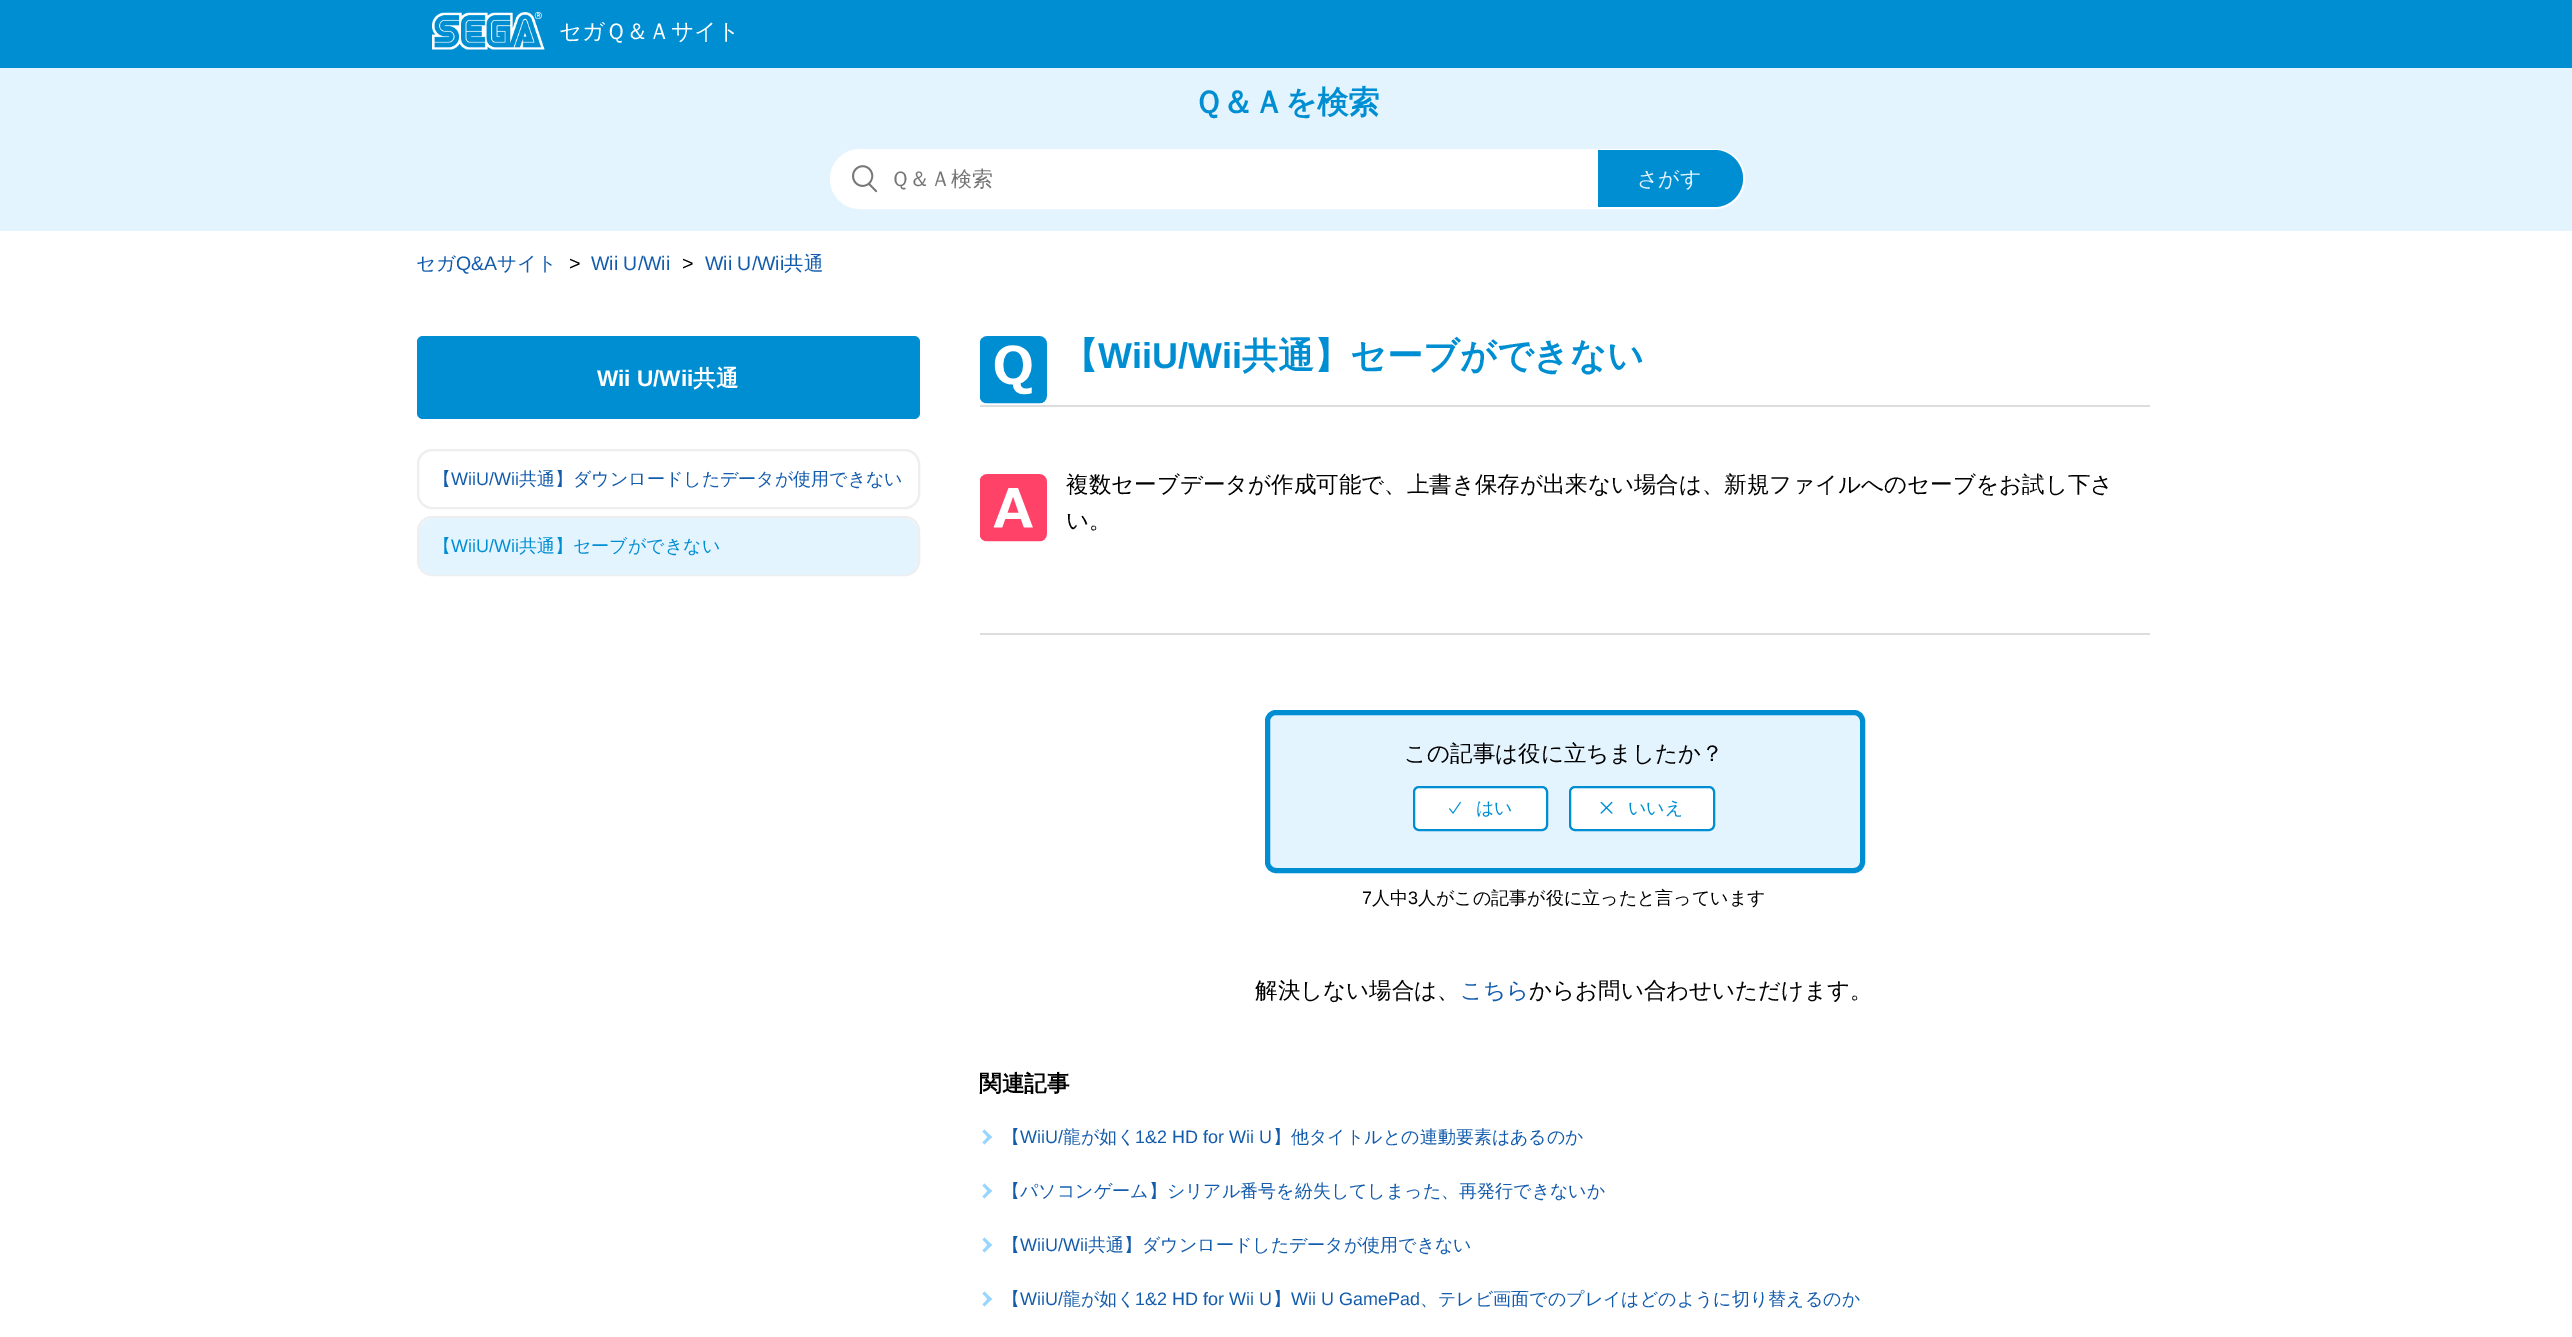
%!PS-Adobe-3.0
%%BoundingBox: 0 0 2572 1337
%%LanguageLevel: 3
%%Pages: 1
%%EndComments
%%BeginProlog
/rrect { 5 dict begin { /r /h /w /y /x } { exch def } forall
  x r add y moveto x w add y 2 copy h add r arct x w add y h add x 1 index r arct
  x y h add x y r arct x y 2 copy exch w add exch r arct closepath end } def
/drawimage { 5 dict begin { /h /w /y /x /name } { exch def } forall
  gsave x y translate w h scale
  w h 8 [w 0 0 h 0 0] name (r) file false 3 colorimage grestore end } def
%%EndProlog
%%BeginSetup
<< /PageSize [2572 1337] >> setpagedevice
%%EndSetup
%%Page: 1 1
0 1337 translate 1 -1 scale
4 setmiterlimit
1 setgray
0 0 2572 1337 rectfill
0 0.557 0.824 setrgbcolor
0 0 2572 68 rectfill
(images/1.raw) 432 12 113 38 drawimage
0.894 0.957 1 setrgbcolor
0 68 2572 163 rectfill
1 setgray
831 150 913 58 29 rrect gsave fill grestore
2 setlinewidth
stroke
(images/2.raw) 852 165 26 28 drawimage
0 0.557 0.824 setrgbcolor
newpath 1598 150 moveto 1714.5 150 lineto 1730 150 1743 163 1743 178.5 curveto 1743 194 1730 207 1714.5 207 curveto 1598 207 lineto closepath fill
417 336 503 83 6 rrect fill
0.933 setgray
418 450 501 58 14 rrect stroke
418 517 501 58 14 rrect stroke
0.894 0.957 1 setrgbcolor
419 518 499 57 15 rrect fill
(images/3.raw) 980 336 67 68 drawimage
0.867 setgray
980 405 1170 2 rectfill
(images/4.raw) 980 474 67 68 drawimage
980 633 1170 2 rectfill
0.894 0.957 1 setrgbcolor
1267.5 712.5 595 158 8.5 rrect gsave fill grestore
0 0.557 0.824 setrgbcolor
5 setlinewidth
stroke
1 setgray
1414 787 133 43 5 rrect gsave fill grestore
0 0.557 0.824 setrgbcolor
2 setlinewidth
stroke
(images/5.raw) 1449 801 12 13 drawimage
1 setgray
1570 787 144 43 5 rrect gsave fill grestore
0 0.557 0.824 setrgbcolor
stroke
(images/6.raw) 1600 801 13 13 drawimage
0.596 0.835 1 setrgbcolor
newpath 984.5 1129.5 moveto 992 1137 lineto 989.5 1139 lineto 982.5 1131.5 lineto closepath fill
newpath 989.5 1135 moveto 992 1137 lineto 984.5 1144.5 lineto 982.5 1142.5 lineto closepath fill
newpath 984.5 1183.5 moveto 992 1191 lineto 989.5 1193 lineto 982.5 1185.5 lineto closepath fill
newpath 989.5 1189 moveto 992 1191 lineto 984.5 1198.5 lineto 982.5 1196.5 lineto closepath fill
newpath 984.5 1237.5 moveto 992 1245 lineto 989.5 1247 lineto 982.5 1239.5 lineto closepath fill
newpath 989.5 1243 moveto 992 1245 lineto 984.5 1252.5 lineto 982.5 1250.5 lineto closepath fill
newpath 984.5 1291.5 moveto 992 1299 lineto 989.5 1301 lineto 982.5 1293.5 lineto closepath fill
newpath 989.5 1297 moveto 992 1299 lineto 984.5 1306.5 lineto 982.5 1304.5 lineto closepath fill
/WenQuanYiZenHei-Medium [22.5 0 0 -22.5 0 0] selectfont
1 setgray
559 39 moveto (セガＱ＆Ａサイト) show
/WenQuanYiZenHei-Bold [31.5 0 0 -31.5 0 0] selectfont
0 0.557 0.824 setrgbcolor
1193 113 moveto (Ｑ＆Ａを検索) show
/WenQuanYiZenHei-Medium [21 0 0 -21 0 0] selectfont
0.459 setgray
890 186 moveto (Ｑ＆Ａ検索) show
0.894 0.957 1 setrgbcolor
1637 186 moveto (さがす) show
/WenQuanYiZenHei-Medium [19.5 0 0 -19.5 0 0] selectfont
0.075 0.361 0.675 setrgbcolor
416 270 moveto (セガ) show
/LiberationSans-Regular [19.5 0 0 -19.5 0 0] selectfont
456 270 moveto (Q&A) show
/WenQuanYiZenHei-Medium [19.5 0 0 -19.5 0 0] selectfont
497 270 moveto (サイト) show
/LiberationSans-Regular [19.5 0 0 -19.5 0 0] selectfont
0 setgray
569 270 moveto (>) show
0.075 0.361 0.675 setrgbcolor
591 270 moveto (Wii U/Wii) show
0 setgray
682 270 moveto (>) show
0.075 0.361 0.675 setrgbcolor
705 270 moveto (Wii U/Wii) show
/WenQuanYiZenHei-Medium [19.5 0 0 -19.5 0 0] selectfont
784 270 moveto (共通) show
/LiberationSans-Bold [22.5 0 0 -22.5 0 0] selectfont
1 setgray
597 386 moveto (Wii U/Wii) show
/WenQuanYiZenHei-Bold [22.5 0 0 -22.5 0 0] selectfont
693 386 moveto (共通) show
/WenQuanYiZenHei-Medium [18 0 0 -18 0 0] selectfont
0.075 0.361 0.675 setrgbcolor
433 485 moveto (【) show
/LiberationSans-Regular [18 0 0 -18 0 0] selectfont
451 485 moveto (WiiU/Wii) show
/WenQuanYiZenHei-Medium [18 0 0 -18 0 0] selectfont
519 485 moveto (共通】ダウンロードしたデータが使用できない) show
0 0.557 0.824 setrgbcolor
433 552 moveto (【) show
/LiberationSans-Regular [18 0 0 -18 0 0] selectfont
451 552 moveto (WiiU/Wii) show
/WenQuanYiZenHei-Medium [18 0 0 -18 0 0] selectfont
519 552 moveto (共通】セーブができない) show
/WenQuanYiZenHei-Bold [36 0 0 -36 0 0] selectfont
1062 368 moveto (【) show
/LiberationSans-Bold [36 0 0 -36 0 0] selectfont
1098 368 moveto (WiiU/Wii) show
/WenQuanYiZenHei-Bold [36 0 0 -36 0 0] selectfont
1242 368 moveto (共通】セーブができない) show
/WenQuanYiZenHei-Medium [22.5 0 0 -22.5 0 0] selectfont
0 setgray
1066 492 moveto (複数セーブデータが作成可能で、上書き保存が出来ない場合は、新規ファイルへのセーブをお試し下さ) show
1066 528 moveto (い。) show
1404 761 moveto (この記事は役に立ちましたか？) show
/WenQuanYiZenHei-Medium [18 0 0 -18 0 0] selectfont
0 0.557 0.824 setrgbcolor
1476 814 moveto (はい) show
1628 814 moveto (いいえ) show
/LiberationSans-Regular [18 0 0 -18 0 0] selectfont
0 setgray
1362 904 moveto (7) show
/WenQuanYiZenHei-Medium [18 0 0 -18 0 0] selectfont
1372 904 moveto (人中) show
/LiberationSans-Regular [18 0 0 -18 0 0] selectfont
1408 904 moveto (3) show
/WenQuanYiZenHei-Medium [18 0 0 -18 0 0] selectfont
1418 904 moveto (人がこの記事が役に立ったと言っています) show
/WenQuanYiZenHei-Medium [22.5 0 0 -22.5 0 0] selectfont
1255 998 moveto (解決しない場合は、) show
0.075 0.361 0.675 setrgbcolor
1460 998 moveto (こちら) show
0 setgray
1529 998 moveto (からお問い合わせいただけます。) show
/WenQuanYiZenHei-Bold [22.5 0 0 -22.5 0 0] selectfont
979 1091 moveto (関連記事) show
/WenQuanYiZenHei-Medium [18 0 0 -18 0 0] selectfont
0.075 0.361 0.675 setrgbcolor
1002 1143 moveto (【) show
/LiberationSans-Regular [18 0 0 -18 0 0] selectfont
1020 1143 moveto (WiiU/) show
/WenQuanYiZenHei-Medium [18 0 0 -18 0 0] selectfont
1063 1143 moveto (龍が如く) show
/LiberationSans-Regular [18 0 0 -18 0 0] selectfont
1135 1143 moveto (1&2 HD for Wii U) show
/WenQuanYiZenHei-Medium [18 0 0 -18 0 0] selectfont
1273 1143 moveto (】他タイトルとの連動要素はあるのか) show
1002 1197 moveto (【パソコンゲーム】シリアル番号を紛失してしまった、再発行できないか) show
1002 1251 moveto (【) show
/LiberationSans-Regular [18 0 0 -18 0 0] selectfont
1020 1251 moveto (WiiU/Wii) show
/WenQuanYiZenHei-Medium [18 0 0 -18 0 0] selectfont
1088 1251 moveto (共通】ダウンロードしたデータが使用できない) show
1002 1305 moveto (【) show
/LiberationSans-Regular [18 0 0 -18 0 0] selectfont
1020 1305 moveto (WiiU/) show
/WenQuanYiZenHei-Medium [18 0 0 -18 0 0] selectfont
1063 1305 moveto (龍が如く) show
/LiberationSans-Regular [18 0 0 -18 0 0] selectfont
1135 1305 moveto (1&2 HD for Wii U) show
/WenQuanYiZenHei-Medium [18 0 0 -18 0 0] selectfont
1273 1305 moveto (】) show
/LiberationSans-Regular [18 0 0 -18 0 0] selectfont
1291 1305 moveto (Wii U GamePad) show
/WenQuanYiZenHei-Medium [18 0 0 -18 0 0] selectfont
1420 1305 moveto (、テレビ画面でのプレイはどのように切り替えるのか) show
showpage
%%EOF
